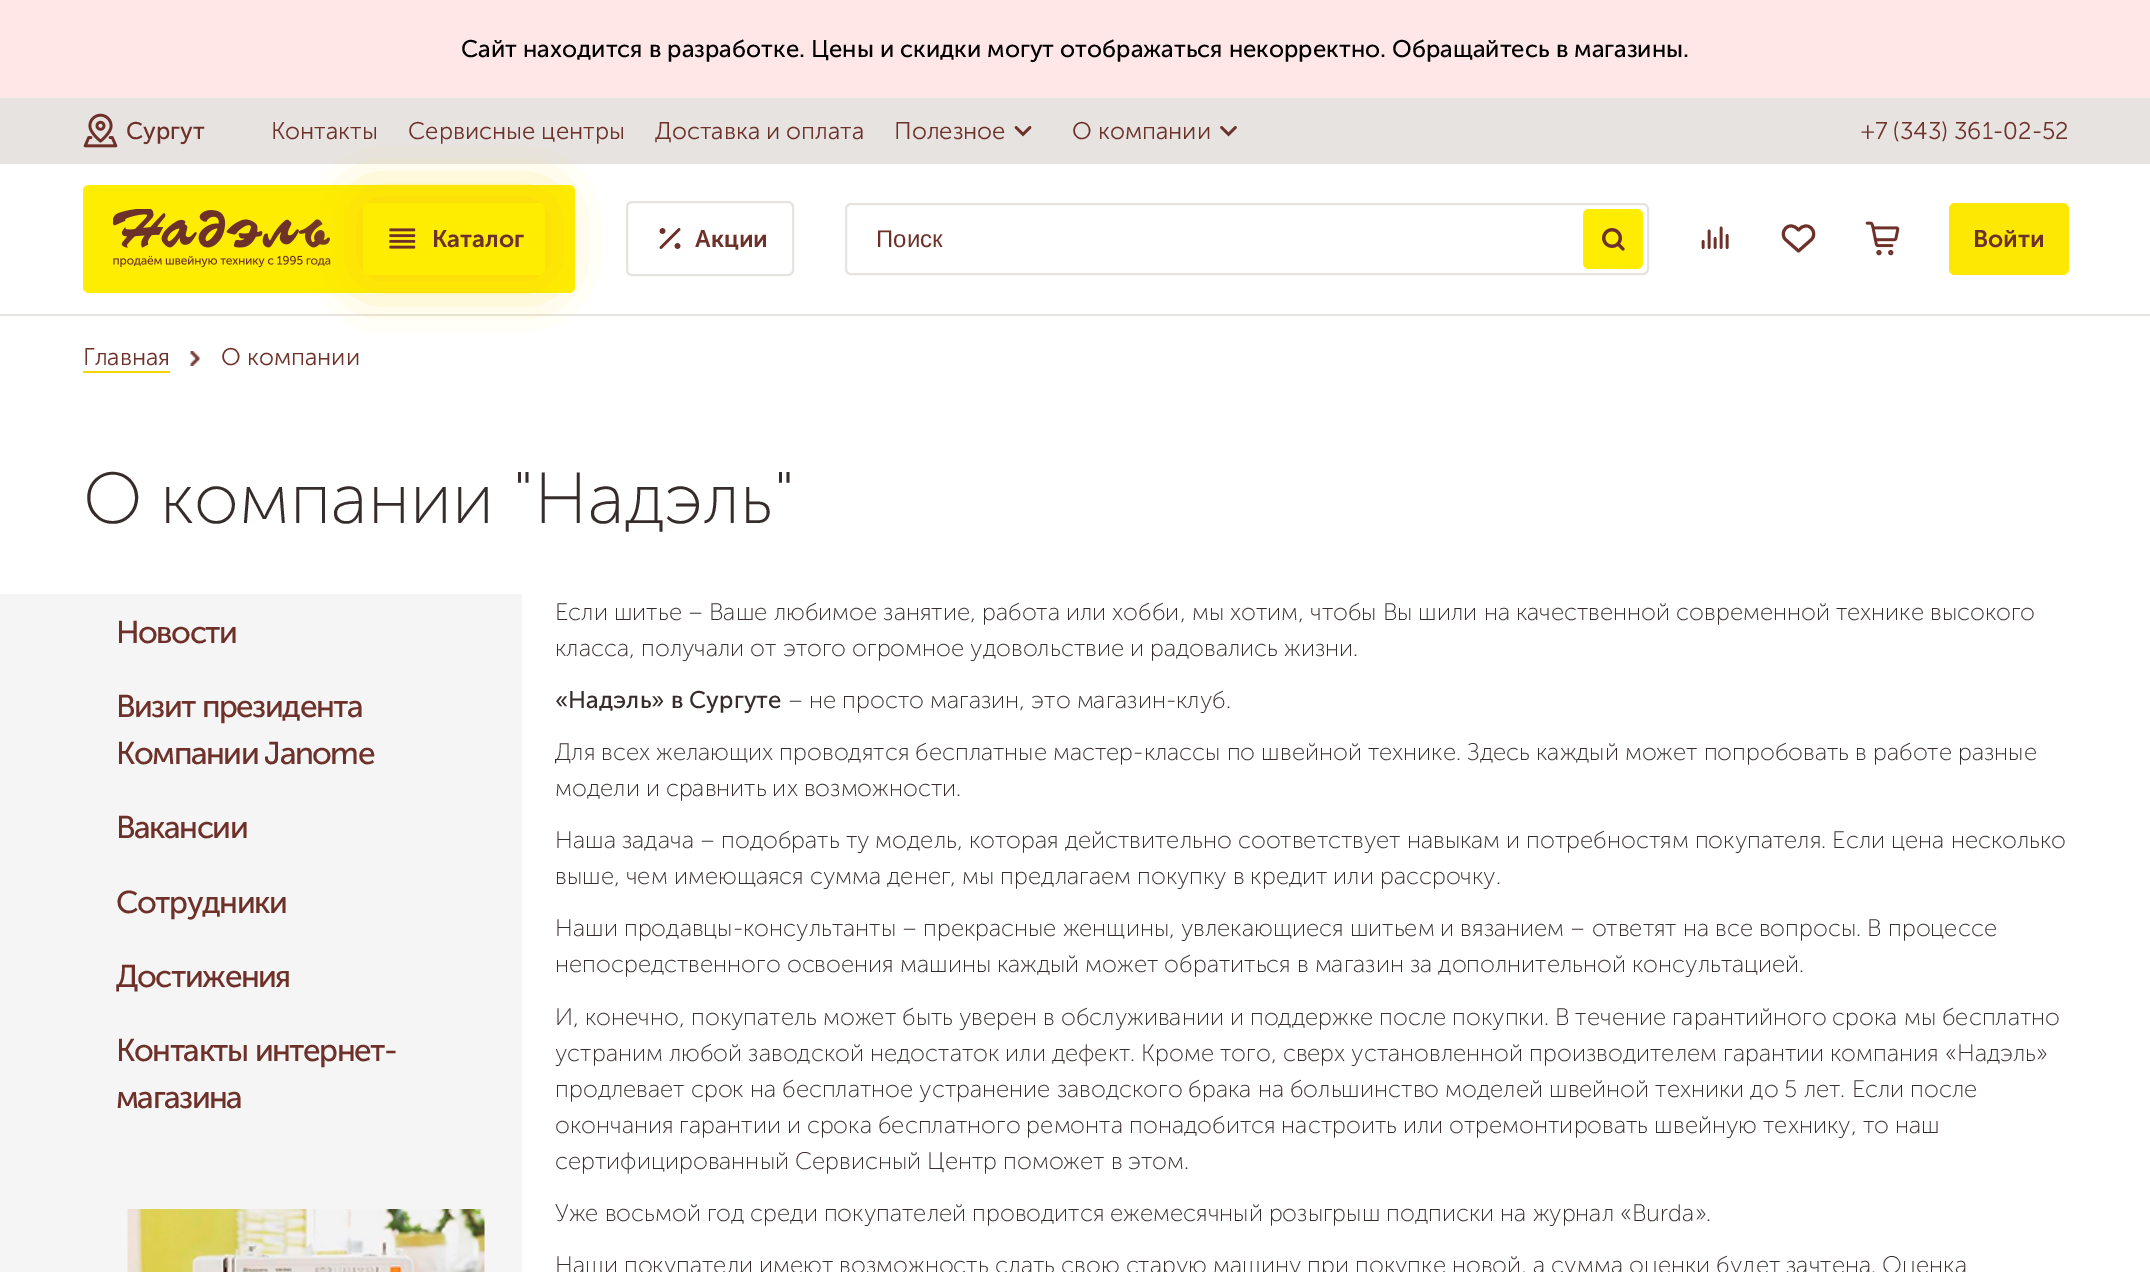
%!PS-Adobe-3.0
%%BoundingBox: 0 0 2150 1272
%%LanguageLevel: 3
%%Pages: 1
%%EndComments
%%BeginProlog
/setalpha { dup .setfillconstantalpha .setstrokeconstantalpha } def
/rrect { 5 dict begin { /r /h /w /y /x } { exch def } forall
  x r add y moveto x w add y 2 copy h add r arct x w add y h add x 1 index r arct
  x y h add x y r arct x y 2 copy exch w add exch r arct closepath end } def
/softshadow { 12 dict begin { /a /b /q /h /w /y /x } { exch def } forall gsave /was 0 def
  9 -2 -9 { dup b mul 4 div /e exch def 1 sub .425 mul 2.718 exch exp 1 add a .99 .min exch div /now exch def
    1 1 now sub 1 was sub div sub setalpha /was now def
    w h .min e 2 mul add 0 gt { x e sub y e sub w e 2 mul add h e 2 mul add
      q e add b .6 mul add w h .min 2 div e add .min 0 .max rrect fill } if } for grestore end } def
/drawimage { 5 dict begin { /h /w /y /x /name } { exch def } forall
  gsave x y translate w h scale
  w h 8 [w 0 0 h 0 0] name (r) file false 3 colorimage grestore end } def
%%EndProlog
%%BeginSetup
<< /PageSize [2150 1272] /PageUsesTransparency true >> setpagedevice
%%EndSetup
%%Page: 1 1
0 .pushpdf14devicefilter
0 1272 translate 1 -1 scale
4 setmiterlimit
1 setgray
0 0 2150 1272 rectfill
1 0.906 0.906 setrgbcolor
0 0 2150 98 rectfill
0.902 0.89 0.882 setrgbcolor
0 314 2150 2 rectfill
0 98 2150 66 rectfill
(images/1.raw) 83 113 35 35 drawimage
(images/2.raw) 1014 126 18 11 drawimage
(images/3.raw) 1220 126 17 11 drawimage
0.996 0.929 0.004 setrgbcolor
83 185 492 108 6 rrect fill
(images/4.raw) 113 209 218 59 drawimage
0.98 0.831 0.059 setrgbcolor
363 203 182 72 6 25.5 1 softshadow
0.996 0.929 0.004 setrgbcolor
363 203 182 72 6 rrect fill
(images/5.raw) 389 228 27 21 drawimage
0.902 0.89 0.882 setrgbcolor
2 setlinewidth
627 202 166 73 5 rrect stroke
(images/6.raw) 659 228 22 21 drawimage
846 204 802 70 5 rrect stroke
0.996 0.929 0.004 setrgbcolor
1583 209 60 60 6 rrect fill
(images/7.raw) 1602 228 23 23 drawimage
(images/8.raw) 1701 226 28 23 drawimage
0.431 0.192 0.165 setrgbcolor
3 setlinewidth
1 setlinecap
1 setlinejoin
newpath 1798.5 251 moveto 1785.5 239.5 lineto 1778.5 232.5 1789 219 1798.5 230 curveto 1808 219 1818.5 232.5 1811.5 239.5 curveto closepath stroke
(images/9.raw) 1865 221 35 35 drawimage
0.992 0.91 0.016 setrgbcolor
1949 203 120 72 6 rrect fill
0.961 0.827 0 setrgbcolor
83 371 87 2 rectfill
(images/10.raw) 190 351 10 15 drawimage
0.961 setgray
0 594 522 678 rectfill
(images/11.raw) 127 1209 358 63 drawimage
/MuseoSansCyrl-Regular [24 0 0 -24 0 0] selectfont
0 setgray
461 57 moveto (Сайт находится в разработке. Цены и скидки могут отображаться некорректно. Обращайтесь в магазины.) show
0.431 0.192 0.165 setrgbcolor
126 139 moveto (Сургут) show
/MuseoSansCyrl-Light [24 0 0 -24 0 0] selectfont
271 139 moveto (Контакты) show
408 139 moveto (Сервисные центры) show
655 139 moveto (Доставка и оплата) show
894 139 moveto (Полезное) show
1072 139 moveto (О компании) show
1861 139 moveto (+7 \(343\) 361-02-52) show
/MuseoSansCyrl-SemiBold [24 0 0 -24 0 0] selectfont
432 247 moveto (Каталог) show
695 247 moveto (Акции) show
/LiberationSans-Regular [24 0 0 -24 0 0] selectfont
876 247 moveto (Поиск) show
/MuseoSansCyrl-SemiBold [24 0 0 -24 0 0] selectfont
1973 247 moveto (Войти) show
/MuseoSansCyrl-Light [24 0 0 -24 0 0] selectfont
83 365 moveto (Главная) show
221 365 moveto (О компании) show
/MuseoSansCyrl-ExtraLight [72 0 0 -72 0 0] selectfont
0.216 0.173 0.173 setrgbcolor
83 523 moveto (О компании "Надэль") show
/MuseoSansCyrl-Regular [31.5 0 0 -31.5 0 0] selectfont
0.431 0.192 0.165 setrgbcolor
116 643 moveto -1.5 0 (Новости) ashow
116 717 moveto -1.5 0 (Визит президента) ashow
116 764 moveto -1.5 0 (Компании Janome) ashow
116 838 moveto -1.5 0 (Вакансии) ashow
116 913 moveto -1.5 0 (Сотрудники) ashow
116 987 moveto -1.5 0 (Достижения) ashow
116 1061 moveto -1.5 0 (Контакты интернет-) ashow
116 1108 moveto -1.5 0 (магазина) ashow
/MuseoSansCyrl-ExtraLight [24 0 0 -24 0 0] selectfont
0.216 0.173 0.173 setrgbcolor
555 620 moveto (Если шитье – Ваше любимое занятие, работа или хобби, мы хотим, чтобы Вы шили на качественной современной технике высокого) show
555 656 moveto (класса, получали от этого огромное удовольствие и радовались жизни.) show
/MuseoSansCyrl-Regular [24 0 0 -24 0 0] selectfont
555 708 moveto («Надэль» в Сургуте) show
/MuseoSansCyrl-ExtraLight [24 0 0 -24 0 0] selectfont
788 708 moveto (– не просто магазин, это магазин-клуб.) show
555 760 moveto (Для всех желающих проводятся бесплатные мастер-классы по швейной технике. Здесь каждый может попробовать в работе разные) show
555 796 moveto (модели и сравнить их возможности.) show
555 848 moveto (Наша задача – подобрать ту модель, которая действительно соответствует навыкам и потребностям покупателя. Если цена несколько) show
555 884 moveto (выше, чем имеющаяся сумма денег, мы предлагаем покупку в кредит или рассрочку.) show
555 936 moveto (Наши продавцы-консультанты – прекрасные женщины, увлекающиеся шитьем и вязанием – ответят на все вопросы. В процессе) show
555 972 moveto (непосредственного освоения машины каждый может обратиться в магазин за дополнительной консультацией.) show
555 1025 moveto (И, конечно, покупатель может быть уверен в обслуживании и поддержке после покупки. В течение гарантийного срока мы бесплатно) show
555 1061 moveto (устраним любой заводской недостаток или дефект. Кроме того, сверх установленной производителем гарантии компания «Надэль») show
555 1097 moveto (продлевает срок на бесплатное устранение заводского брака на большинство моделей швейной техники до 5 лет. Если после) show
555 1133 moveto (окончания гарантии и срока бесплатного ремонта понадобится настроить или отремонтировать швейную технику, то наш) show
555 1169 moveto (сертифицированный Сервисный Центр поможет в этом.) show
555 1221 moveto (Уже восьмой год среди покупателей проводится ежемесячный розыгрыш подписки на журнал «Burda».) show
555 1273 moveto (Наши покупатели имеют возможность сдать свою старую машину при покупке новой, а сумма оценки будет зачтена. Оценка) show
.poppdf14devicefilter showpage
%%EOF
